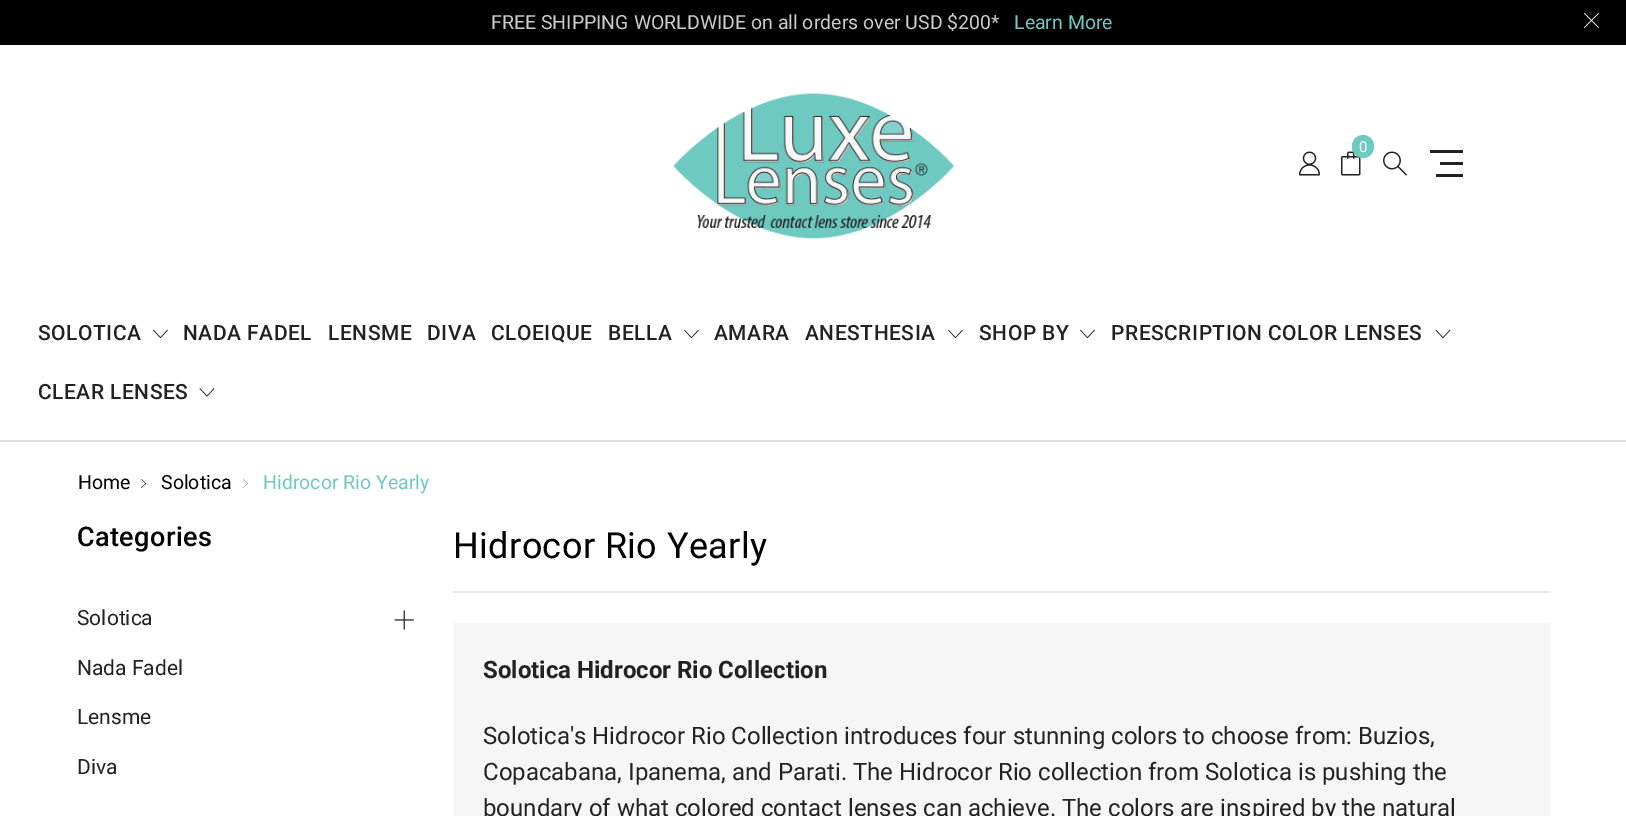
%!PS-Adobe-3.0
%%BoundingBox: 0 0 1626 816
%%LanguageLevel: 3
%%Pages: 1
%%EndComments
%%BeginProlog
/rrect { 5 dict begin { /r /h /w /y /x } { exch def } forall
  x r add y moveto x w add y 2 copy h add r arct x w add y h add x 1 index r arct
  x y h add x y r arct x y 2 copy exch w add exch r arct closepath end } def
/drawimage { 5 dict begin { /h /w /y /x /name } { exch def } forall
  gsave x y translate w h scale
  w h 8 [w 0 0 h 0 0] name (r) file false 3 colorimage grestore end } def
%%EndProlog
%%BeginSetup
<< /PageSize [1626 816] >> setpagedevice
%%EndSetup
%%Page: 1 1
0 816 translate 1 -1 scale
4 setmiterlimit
1 setgray
0 0 1626 816 rectfill
0.878 setgray
0 440 1626 2 rectfill
0 setgray
0 0 1626 45 rectfill
(images/1.raw) 1584 13 15 15 drawimage
(images/2.raw) 673 93 281 146 drawimage
(images/3.raw) 1341 151 20 25 drawimage
0.431 0.788 0.753 setrgbcolor
1352 135 22 23 11 rrect fill
(images/4.raw) 1299 151 21 25 drawimage
(images/5.raw) 1383 151 24 25 drawimage
0.133 setgray
1430 150 33 3 rectfill
1440 162 23 3 rectfill
1436 174 27 3 rectfill
(images/6.raw) 153 329 15 10 drawimage
(images/6.raw) 684 329 15 10 drawimage
(images/6.raw) 948 329 15 10 drawimage
(images/6.raw) 1080 329 15 10 drawimage
(images/7.raw) 1435 329 16 10 drawimage
(images/8.raw) 199 388 16 9 drawimage
(images/9.raw) 141 479 5 9 drawimage
(images/10.raw) 243 479 5 9 drawimage
(images/11.raw) 394 610 20 20 drawimage
0.91 setgray
453 591 1097 2 rectfill
0.965 setgray
453 623 1097 193 rectfill
/Roboto-Regular [19.5 0 0 -19.5 0 0] selectfont
0.8 setgray
491 29 moveto (FREE SHIPPING WORLDWIDE on all orders over USD $200*) show
0.431 0.788 0.753 setrgbcolor
1014 29 moveto (Learn More) show
/Roboto-Regular [15 0 0 -15 0 0] selectfont
1 setgray
1359 152 moveto (0) show
/Roboto-Medium [21 0 0 -21 0 0] selectfont
0.133 setgray
38 340 moveto 0.5 0 (SOLOTICA) ashow
183 340 moveto 0.5 0 (NADA FADEL) ashow
328 340 moveto 0.5 0 (LENSME) ashow
427 340 moveto 0.5 0 (DIVA) ashow
491 340 moveto 0.5 0 (CLOEIQUE) ashow
608 340 moveto 0.5 0 (BELLA) ashow
714 340 moveto 0.5 0 (AMARA) ashow
805 340 moveto 0.5 0 (ANESTHESIA) ashow
979 340 moveto 0.5 0 (SHOP BY) ashow
1111 340 moveto 0.5 0 (PRESCRIPTION COLOR LENSES) ashow
38 399 moveto 0.5 0 (CLEAR LENSES) ashow
/Roboto-Regular [19.5 0 0 -19.5 0 0] selectfont
0 setgray
78 489 moveto (Home) show
161 489 moveto (Solotica) show
0.431 0.788 0.753 setrgbcolor
263 489 moveto (Hidrocor Rio Yearly) show
/Roboto-Medium [27 0 0 -27 0 0] selectfont
0 setgray
77 546 moveto 0.4 0 (Categories) ashow
/Roboto-Regular [21 0 0 -21 0 0] selectfont
0.133 setgray
77 625 moveto (Solotica) show
77 675 moveto (Nada Fadel) show
77 724 moveto (Lensme) show
77 774 moveto (Diva) show
/Roboto-Regular [36 0 0 -36 0 0] selectfont
0 setgray
453 558 moveto 0.4 0 (Hidrocor Rio Yearly) ashow
/Roboto-Bold [24 0 0 -24 0 0] selectfont
0.133 setgray
483 678 moveto (Solotica Hidrocor Rio Collection) show
/Roboto-Regular [24 0 0 -24 0 0] selectfont
483 744 moveto (Solotica's Hidrocor Rio Collection introduces four stunning colors to choose from: Buzios,) show
483 780 moveto (Copacabana, Ipanema, and Parati. The Hidrocor Rio collection from Solotica is pushing the) show
483 816 moveto (boundary of what colored contact lenses can achieve. The colors are inspired by the natural) show
showpage
%%EOF
